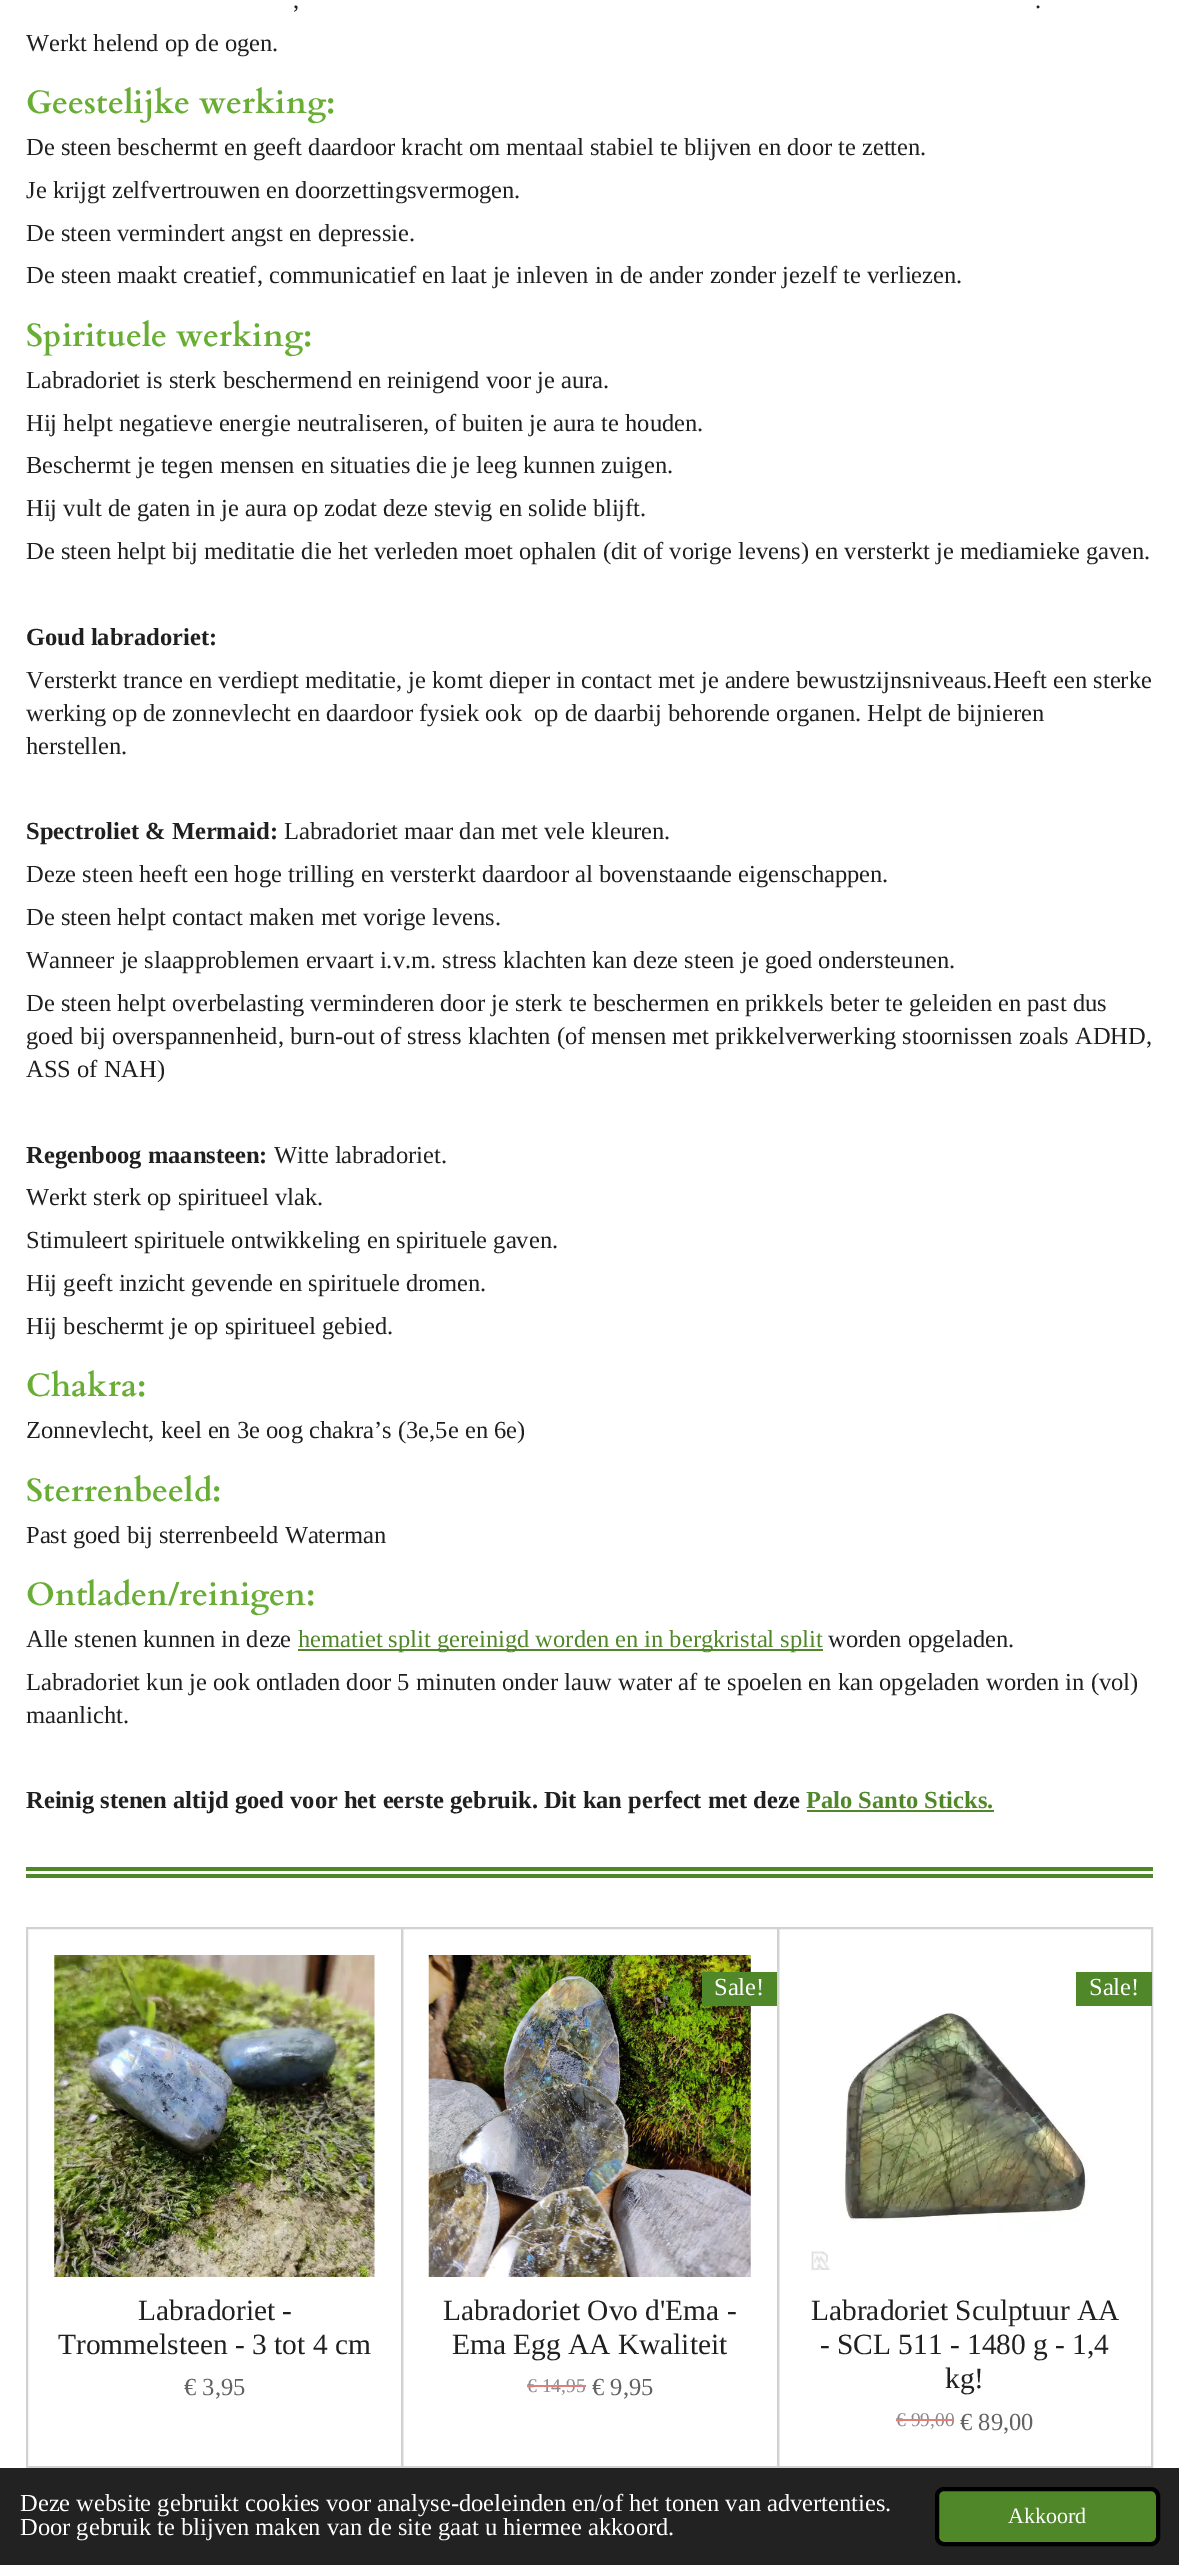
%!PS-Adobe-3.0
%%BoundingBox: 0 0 1179 2565
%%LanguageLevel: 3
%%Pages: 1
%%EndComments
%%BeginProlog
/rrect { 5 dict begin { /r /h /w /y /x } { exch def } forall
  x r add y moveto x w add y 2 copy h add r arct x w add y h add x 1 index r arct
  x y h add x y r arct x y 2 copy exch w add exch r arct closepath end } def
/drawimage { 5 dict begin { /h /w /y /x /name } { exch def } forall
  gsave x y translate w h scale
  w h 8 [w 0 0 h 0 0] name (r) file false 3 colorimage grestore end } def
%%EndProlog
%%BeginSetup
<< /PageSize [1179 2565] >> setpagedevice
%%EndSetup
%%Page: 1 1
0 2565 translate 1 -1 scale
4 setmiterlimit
1 setgray
0 0 1179 2565 rectfill
0.314 0.529 0.161 setrgbcolor
298 1649 525 2 rectfill
807 1810 187 2 rectfill
26 1867 1127 4 rectfill
26 1874 1127 4 rectfill
0.824 setgray
2 setlinewidth
27 1928 375 539 rectstroke
(images/1.raw) 54 1955 321 322 drawimage
402 1928 376 539 rectstroke
(images/2.raw) 428 1955 323 322 drawimage
0.314 0.529 0.161 setrgbcolor
702 1972 75 34 rectfill
0.824 setgray
778 1928 374 539 rectstroke
0.314 0.529 0.161 setrgbcolor
1076 1972 76 34 rectfill
(images/3.raw) 811 2012 277 259 drawimage
0.133 setgray
0 2468 1179 97 rectfill
0.314 0.529 0.161 setrgbcolor
937 2489 221 55 7 rrect gsave fill grestore
0 setgray
4 setlinewidth
stroke
/LiberationSerif-Regular [24.5 0 0 -24.5 0 0] selectfont
0.125 setgray
293 8 moveto (,) show
1035 8 moveto (.) show
26 51 moveto (Werkt helend op de ogen.) show
/Cardo-Bold [32.4 0 0 -32.4 0 0] selectfont
0.408 0.682 0.204 setrgbcolor
26 113 moveto (Geestelijke werking:) show
/LiberationSerif-Regular [24.5 0 0 -24.5 0 0] selectfont
0.125 setgray
26 155 moveto (De steen beschermt en geeft daardoor kracht om mentaal stabiel te blijven en door te zetten.) show
26 198 moveto (Je krijgt zelfvertrouwen en doorzettingsvermogen.) show
26 241 moveto (De steen vermindert angst en depressie.) show
26 283 moveto (De steen maakt creatief, communicatief en laat je inleven in de ander zonder jezelf te verliezen.) show
/Cardo-Bold [32.4 0 0 -32.4 0 0] selectfont
0.408 0.682 0.204 setrgbcolor
26 346 moveto (Spirituele werking:) show
/LiberationSerif-Regular [24.5 0 0 -24.5 0 0] selectfont
0.125 setgray
26 388 moveto (Labradoriet is sterk beschermend en reinigend voor je aura.) show
26 431 moveto (Hij helpt negatieve energie neutraliseren, of buiten je aura te houden.) show
26 473 moveto (Beschermt je tegen mensen en situaties die je leeg kunnen zuigen.) show
26 516 moveto (Hij vult de gaten in je aura op zodat deze stevig en solide blijft.) show
26 559 moveto (De steen helpt bij meditatie die het verleden moet ophalen \(dit of vorige levens\) en versterkt je mediamieke gaven.) show
/LiberationSerif-Bold [24.5 0 0 -24.5 0 0] selectfont
26 645 moveto (Goud labradoriet:) show
/LiberationSerif-Regular [24.5 0 0 -24.5 0 0] selectfont
26 688 moveto (Versterkt trance en verdiept meditatie, je komt dieper in contact met je andere bewustzijnsniveaus.Heeft een sterke) show
26 721 moveto (werking op de zonnevlecht en daardoor fysiek ook  op de daarbij behorende organen. Helpt de bijnieren) show
26 754 moveto (herstellen.) show
/LiberationSerif-Bold [24.5 0 0 -24.5 0 0] selectfont
26 839 moveto (Spectroliet & Mermaid:) show
/LiberationSerif-Regular [24.5 0 0 -24.5 0 0] selectfont
284 839 moveto (Labradoriet maar dan met vele kleuren.) show
26 882 moveto (Deze steen heeft een hoge trilling en versterkt daardoor al bovenstaande eigenschappen.) show
26 925 moveto (De steen helpt contact maken met vorige levens.) show
26 968 moveto (Wanneer je slaapproblemen ervaart i.v.m. stress klachten kan deze steen je goed ondersteunen.) show
26 1011 moveto (De steen helpt overbelasting verminderen door je sterk te beschermen en prikkels beter te geleiden en past dus) show
26 1044 moveto (goed bij overspannenheid, burn-out of stress klachten \(of mensen met prikkelverwerking stoornissen zoals ADHD,) show
26 1077 moveto (ASS of NAH\)) show
/LiberationSerif-Bold [24.5 0 0 -24.5 0 0] selectfont
26 1163 moveto (Regenboog maansteen:) show
/LiberationSerif-Regular [24.5 0 0 -24.5 0 0] selectfont
274 1163 moveto (Witte labradoriet.) show
26 1205 moveto (Werkt sterk op spiritueel vlak.) show
26 1248 moveto (Stimuleert spirituele ontwikkeling en spirituele gaven.) show
26 1291 moveto (Hij geeft inzicht gevende en spirituele dromen.) show
26 1334 moveto (Hij beschermt je op spiritueel gebied.) show
/Cardo-Bold [32.4 0 0 -32.4 0 0] selectfont
0.408 0.682 0.204 setrgbcolor
26 1396 moveto (Chakra:) show
/LiberationSerif-Regular [24.5 0 0 -24.5 0 0] selectfont
0.125 setgray
26 1438 moveto (Zonnevlecht, keel en 3e oog chakra’s \(3e,5e en 6e\)) show
/Cardo-Bold [32.4 0 0 -32.4 0 0] selectfont
0.408 0.682 0.204 setrgbcolor
26 1501 moveto (Sterrenbeeld:) show
/LiberationSerif-Regular [24.5 0 0 -24.5 0 0] selectfont
0.125 setgray
26 1543 moveto (Past goed bij sterrenbeeld Waterman) show
/Cardo-Bold [32.4 0 0 -32.4 0 0] selectfont
0.408 0.682 0.204 setrgbcolor
26 1605 moveto (Ontladen/reinigen:) show
/LiberationSerif-Regular [24.5 0 0 -24.5 0 0] selectfont
0.125 setgray
26 1647 moveto (Alle stenen kunnen in deze) show
0.314 0.529 0.161 setrgbcolor
298 1647 moveto (hematiet split gereinigd worden en in bergkristal split) show
0.125 setgray
828 1647 moveto (worden opgeladen.) show
26 1690 moveto (Labradoriet kun je ook ontladen door 5 minuten onder lauw water af te spoelen en kan opgeladen worden in \(vol\)) show
26 1723 moveto (maanlicht.) show
/LiberationSerif-Bold [24.5 0 0 -24.5 0 0] selectfont
26 1808 moveto (Reinig stenen altijd goed voor het eerste gebruik. Dit kan perfect met deze) show
0.314 0.529 0.161 setrgbcolor
806 1808 moveto (Palo Santo Sticks.) show
/LiberationSerif-Regular [29.4 0 0 -29.4 0 0] selectfont
0.125 setgray
138 2320 moveto (Labradoriet -) show
58 2354 moveto (Trommelsteen - 3 tot 4 cm) show
/LiberationSerif-Regular [24.5 0 0 -24.5 0 0] selectfont
0.388 setgray
184 2395 moveto (€ 3,95) show
1 setgray
714 1995 moveto (Sale!) show
/LiberationSerif-Regular [29.4 0 0 -29.4 0 0] selectfont
0.125 setgray
443 2320 moveto (Labradoriet Ovo d'Ema -) show
452 2354 moveto (Ema Egg AA Kwaliteit) show
/LiberationSerif-Regular [19.5 0 0 -19.5 0 0] selectfont
0.541 setgray
527 2392 moveto (€ 14,95) show
0.89 0.494 0.482 setrgbcolor
527 2385 59 2 rectfill
/LiberationSerif-Regular [24.5 0 0 -24.5 0 0] selectfont
0.388 setgray
592 2395 moveto (€ 9,95) show
1 setgray
1089 1995 moveto (Sale!) show
/LiberationSerif-Regular [29.4 0 0 -29.4 0 0] selectfont
0.125 setgray
811 2320 moveto (Labradoriet Sculptuur AA) show
820 2354 moveto (- SCL 511 - 1480 g - 1,4) show
945 2388 moveto (kg!) show
/LiberationSerif-Regular [19.5 0 0 -19.5 0 0] selectfont
0.541 setgray
896 2426 moveto (€ 99,00) show
0.89 0.494 0.482 setrgbcolor
896 2419 58 2 rectfill
/LiberationSerif-Regular [24.5 0 0 -24.5 0 0] selectfont
0.388 setgray
960 2430 moveto (€ 89,00) show
1 setgray
20 2511 moveto (Deze website gebruikt cookies voor analyse-doeleinden en/of het tonen van advertenties.) show
20 2535 moveto (Door gebruik te blijven maken van de site gaat u hiermee akkoord.) show
/LiberationSerif-Regular [22 0 0 -22 0 0] selectfont
1008 2523 moveto (Akkoord) show
showpage
%%EOF
